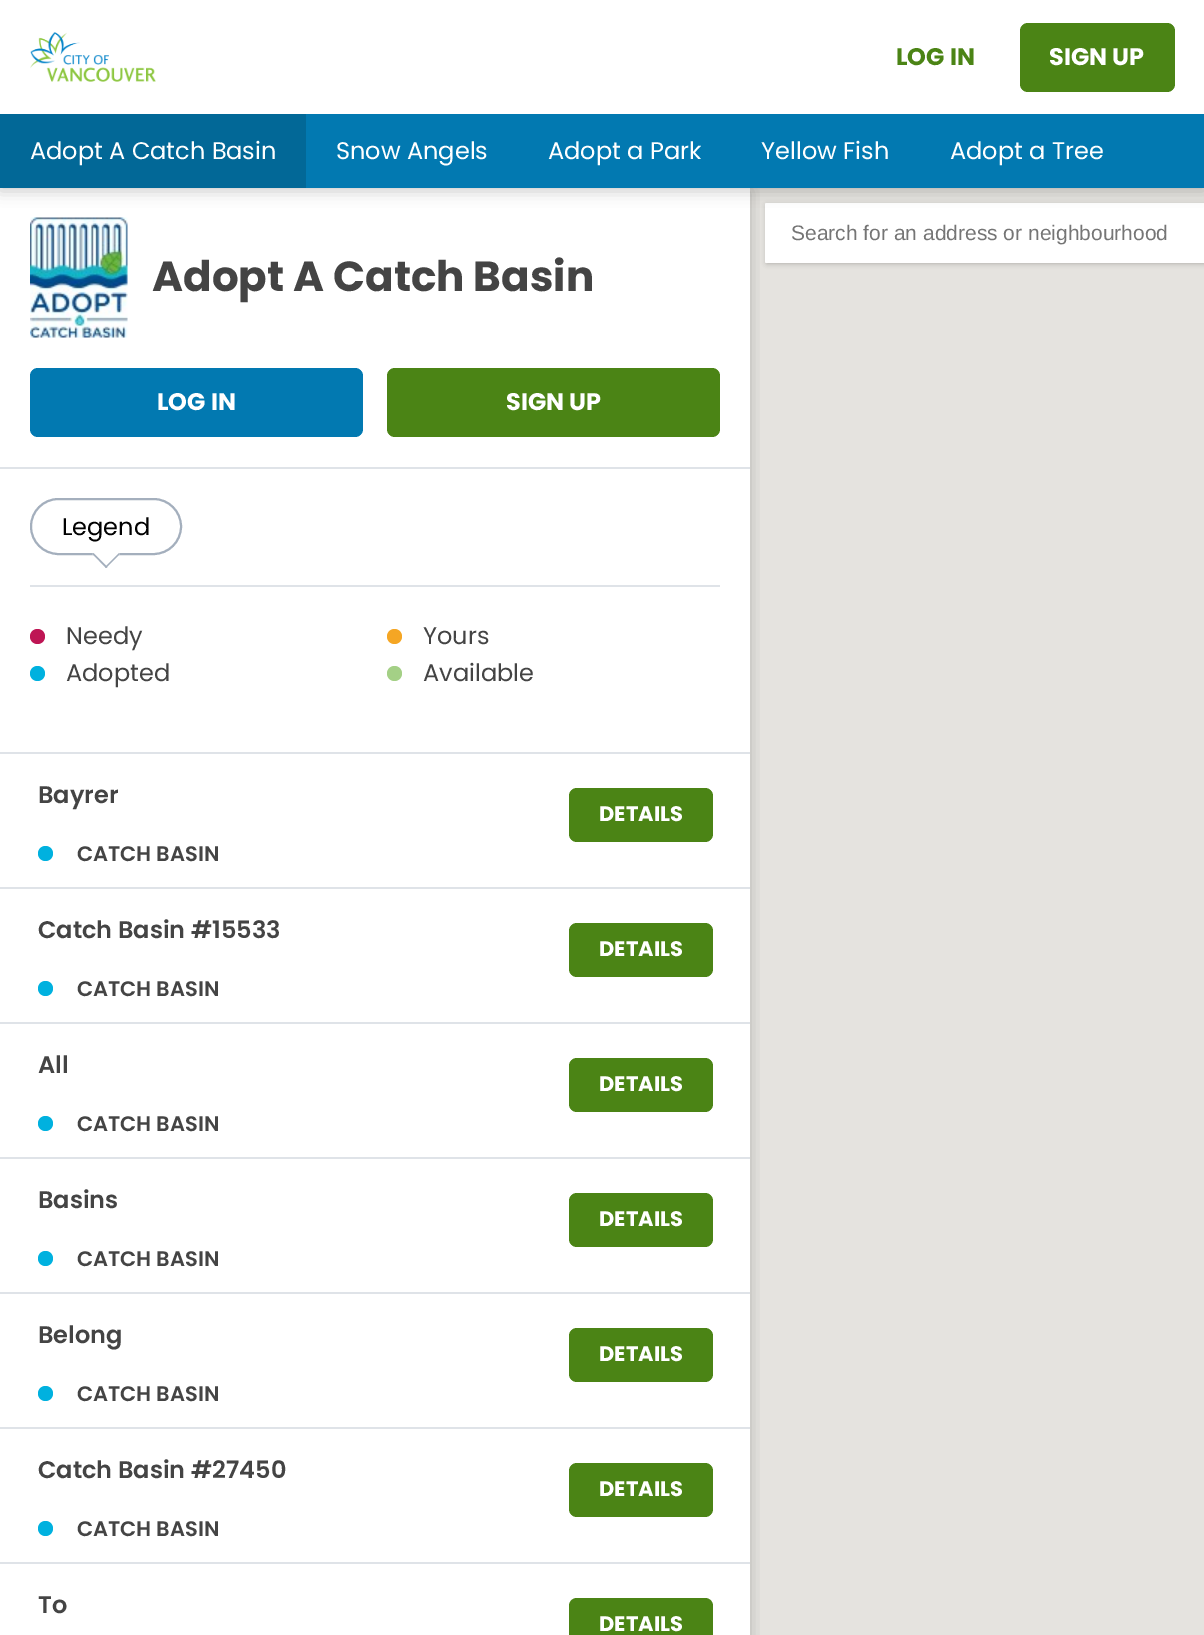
%!PS-Adobe-3.0
%%BoundingBox: 0 0 1204 1635
%%LanguageLevel: 3
%%Pages: 1
%%EndComments
%%BeginProlog
/setalpha { dup .setfillconstantalpha .setstrokeconstantalpha } def
/rrect { 5 dict begin { /r /h /w /y /x } { exch def } forall
  x r add y moveto x w add y 2 copy h add r arct x w add y h add x 1 index r arct
  x y h add x y r arct x y 2 copy exch w add exch r arct closepath end } def
/softshadow { 12 dict begin { /a /b /q /h /w /y /x } { exch def } forall gsave /was 0 def
  9 -2 -9 { dup b mul 4 div /e exch def 1 sub .425 mul 2.718 exch exp 1 add a .99 .min exch div /now exch def
    1 1 now sub 1 was sub div sub setalpha /was now def
    w h .min e 2 mul add 0 gt { x e sub y e sub w e 2 mul add h e 2 mul add
      q e add b .6 mul add w h .min 2 div e add .min 0 .max rrect fill } if } for grestore end } def
/drawimage { 5 dict begin { /h /w /y /x /name } { exch def } forall
  gsave x y translate w h scale
  w h 8 [w 0 0 h 0 0] name (r) file false 3 colorimage grestore end } def
%%EndProlog
%%BeginSetup
<< /PageSize [1204 1635] /PageUsesTransparency true >> setpagedevice
%%EndSetup
%%Page: 1 1
0 .pushpdf14devicefilter
0 1635 translate 1 -1 scale
4 setmiterlimit
1 setgray
0 0 1204 1635 rectfill
0.898 0.89 0.875 setrgbcolor
750 188 454 1447 rectfill
0 setgray
767 206 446 57 0 3 0.3 softshadow
1 setgray
newpath 766.5 203 moveto 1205 203 lineto 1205 263 lineto 766.5 263 lineto 765.5 263 765 262.5 765 261.5 curveto 765 204.5 lineto 765 203.5 765.5 203 766.5 203 curveto closepath fill
0 setgray
0 3 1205 188 0 7.5 0.2 softshadow
1 setgray
0 0 1204 114 rectfill
(images/1.raw) 30 32 126 50 drawimage
0.294 0.518 0.082 setrgbcolor
1020 23 155 69 8 rrect fill
gsave
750 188 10 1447 rectclip
0 setgray
0 191 750 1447 0 7.5 0.2 softshadow
grestore
0.008 0.475 0.694 setrgbcolor
306 114 898 74 rectfill
0.008 0.408 0.592 setrgbcolor
0 114 306 74 rectfill
0.875 0.89 0.91 setrgbcolor
0 467 750 2 rectfill
(images/2.raw) 30 217 98 121 drawimage
0.008 0.475 0.694 setrgbcolor
30 368 333 69 8 rrect fill
0.294 0.518 0.082 setrgbcolor
387 368 333 69 8 rrect fill
0.875 0.89 0.91 setrgbcolor
0 752 750 2 rectfill
0.643 0.686 0.741 setrgbcolor
2 setlinewidth
31 499 150 55 27.5 rrect stroke
0.875 0.89 0.91 setrgbcolor
30 585 690 2 rectfill
0.745 0.082 0.329 setrgbcolor
newpath 37.5 636.5 7.5 0 360 arc closepath fill
0.961 0.651 0.141 setrgbcolor
newpath 394.5 636.5 7.5 0 360 arc closepath fill
0 0.694 0.875 setrgbcolor
newpath 37.5 673.5 7.5 0 360 arc closepath fill
0.643 0.816 0.525 setrgbcolor
newpath 394.5 673.5 7.5 0 360 arc closepath fill
0.875 0.89 0.91 setrgbcolor
0 887 750 2 rectfill
0 0.694 0.875 setrgbcolor
newpath 45.5 853.5 7.5 0 360 arc closepath fill
0.294 0.518 0.082 setrgbcolor
569 788 144 54 8 rrect fill
0.875 0.89 0.91 setrgbcolor
0 1022 750 2 rectfill
0 0.694 0.875 setrgbcolor
newpath 45.5 988.5 7.5 0 360 arc closepath fill
0.294 0.518 0.082 setrgbcolor
569 923 144 54 8 rrect fill
0.875 0.89 0.91 setrgbcolor
0 1157 750 2 rectfill
0 0.694 0.875 setrgbcolor
newpath 45.5 1123.5 7.5 0 360 arc closepath fill
0.294 0.518 0.082 setrgbcolor
569 1058 144 54 8 rrect fill
0.875 0.89 0.91 setrgbcolor
0 1292 750 2 rectfill
0 0.694 0.875 setrgbcolor
newpath 45.5 1258.5 7.5 0 360 arc closepath fill
0.294 0.518 0.082 setrgbcolor
569 1193 144 54 8 rrect fill
0.875 0.89 0.91 setrgbcolor
0 1427 750 2 rectfill
0 0.694 0.875 setrgbcolor
newpath 45.5 1393.5 7.5 0 360 arc closepath fill
0.294 0.518 0.082 setrgbcolor
569 1328 144 54 8 rrect fill
0.875 0.89 0.91 setrgbcolor
0 1562 750 2 rectfill
0 0.694 0.875 setrgbcolor
newpath 45.5 1528.5 7.5 0 360 arc closepath fill
0.294 0.518 0.082 setrgbcolor
569 1463 144 54 8 rrect fill
newpath 577 1598 moveto 705 1598 lineto 709.5 1598 713 1601.5 713 1606 curveto 713 1635 lineto 569 1635 lineto 569 1606 lineto 569 1601.5 572.5 1598 577 1598 curveto closepath fill
/Poppins-Bold [24 0 0 -24 0 0] selectfont
896 65 moveto (LOG IN) show
1 setgray
1049 65 moveto (SIGN UP) show
/Poppins-Regular [24 0 0 -24 0 0] selectfont
30 159 moveto (Adopt A Catch Basin) show
336 159 moveto (Snow Angels) show
548 159 moveto (Adopt a Park) show
761 159 moveto (Yellow Fish) show
950 159 moveto (Adopt a Tree) show
/LiberationSans-Regular [21 0 0 -21 0 0] selectfont
0.459 setgray
791 240 moveto (Search for an address or neighbourhood) show
/Poppins-Bold [42.1 0 0 -42.1 0 0] selectfont
0.267 setgray
152 291 moveto (Adopt A Catch Basin) show
/Poppins-Bold [24 0 0 -24 0 0] selectfont
1 setgray
157 410 moveto (LOG IN) show
506 410 moveto (SIGN UP) show
/Poppins-Regular [24 0 0 -24 0 0] selectfont
0 setgray
62 535 moveto (Legend) show
1 setgray
newpath 92.5 554 moveto 106 540.5 lineto 120 554 lineto 106 568 lineto closepath fill
0.643 0.686 0.741 setrgbcolor
newpath 105 567 moveto 119 553 lineto 120 554 lineto 106 568 lineto closepath fill
newpath 92.5 554 moveto 93.5 553 lineto 107.5 567 lineto 106 568 lineto closepath fill
0.267 setgray
66 644 moveto (Needy) show
423 644 moveto (Yours) show
66 681 moveto (Adopted) show
423 681 moveto (Available) show
/Poppins-SemiBold [24 0 0 -24 0 0] selectfont
38 803 moveto (Bayrer) show
/Poppins-SemiBold [21 0 0 -21 0 0] selectfont
77 861 moveto (CATCH BASIN) show
/Poppins-Bold [21 0 0 -21 0 0] selectfont
1 setgray
599 821 moveto (DETAILS) show
/Poppins-SemiBold [24 0 0 -24 0 0] selectfont
0.267 setgray
38 938 moveto (Catch Basin #15533) show
/Poppins-SemiBold [21 0 0 -21 0 0] selectfont
77 996 moveto (CATCH BASIN) show
/Poppins-Bold [21 0 0 -21 0 0] selectfont
1 setgray
599 956 moveto (DETAILS) show
/Poppins-SemiBold [24 0 0 -24 0 0] selectfont
0.267 setgray
38 1073 moveto (All) show
/Poppins-SemiBold [21 0 0 -21 0 0] selectfont
77 1131 moveto (CATCH BASIN) show
/Poppins-Bold [21 0 0 -21 0 0] selectfont
1 setgray
599 1091 moveto (DETAILS) show
/Poppins-SemiBold [24 0 0 -24 0 0] selectfont
0.267 setgray
38 1208 moveto (Basins) show
/Poppins-SemiBold [21 0 0 -21 0 0] selectfont
77 1266 moveto (CATCH BASIN) show
/Poppins-Bold [21 0 0 -21 0 0] selectfont
1 setgray
599 1226 moveto (DETAILS) show
/Poppins-SemiBold [24 0 0 -24 0 0] selectfont
0.267 setgray
38 1343 moveto (Belong) show
/Poppins-SemiBold [21 0 0 -21 0 0] selectfont
77 1401 moveto (CATCH BASIN) show
/Poppins-Bold [21 0 0 -21 0 0] selectfont
1 setgray
599 1361 moveto (DETAILS) show
/Poppins-SemiBold [24 0 0 -24 0 0] selectfont
0.267 setgray
38 1478 moveto (Catch Basin #27450) show
/Poppins-SemiBold [21 0 0 -21 0 0] selectfont
77 1536 moveto (CATCH BASIN) show
/Poppins-Bold [21 0 0 -21 0 0] selectfont
1 setgray
599 1496 moveto (DETAILS) show
/Poppins-SemiBold [24 0 0 -24 0 0] selectfont
0.267 setgray
38 1613 moveto (To) show
/Poppins-Bold [21 0 0 -21 0 0] selectfont
1 setgray
599 1631 moveto (DETAILS) show
.poppdf14devicefilter showpage
%%EOF
